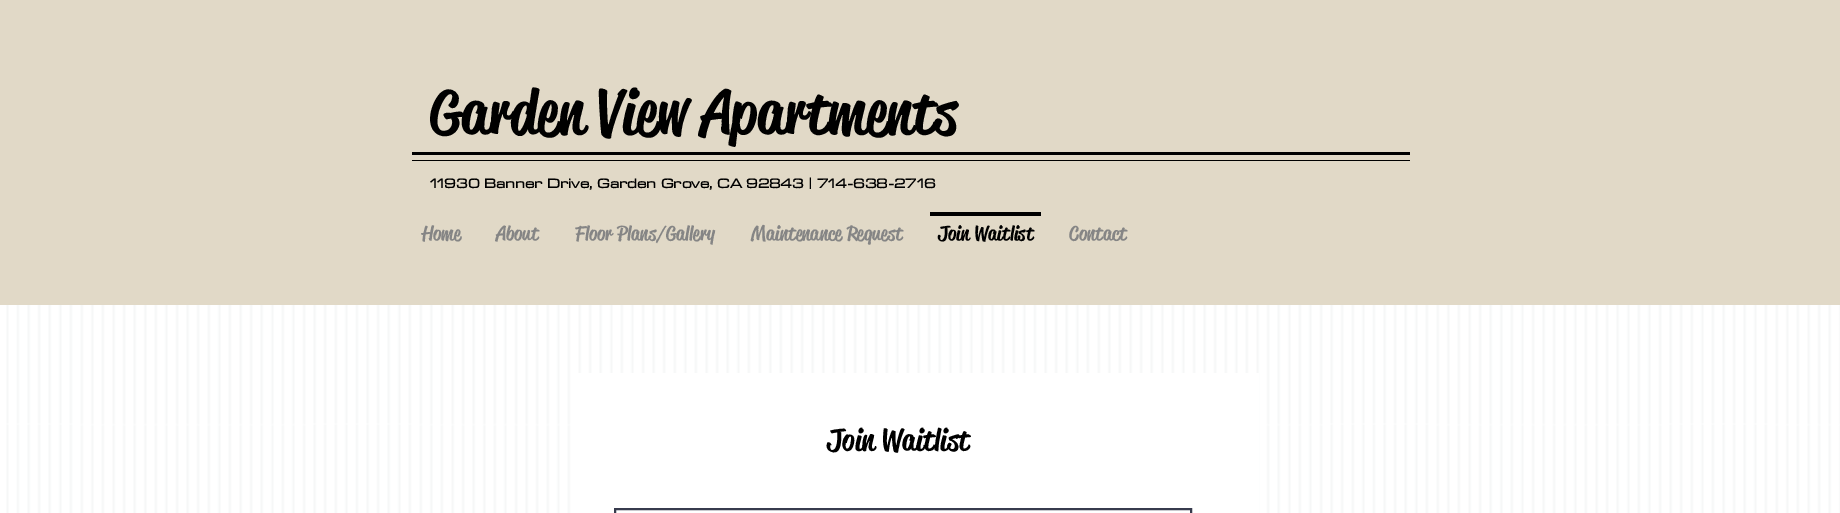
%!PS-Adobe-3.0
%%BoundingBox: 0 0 1840 513
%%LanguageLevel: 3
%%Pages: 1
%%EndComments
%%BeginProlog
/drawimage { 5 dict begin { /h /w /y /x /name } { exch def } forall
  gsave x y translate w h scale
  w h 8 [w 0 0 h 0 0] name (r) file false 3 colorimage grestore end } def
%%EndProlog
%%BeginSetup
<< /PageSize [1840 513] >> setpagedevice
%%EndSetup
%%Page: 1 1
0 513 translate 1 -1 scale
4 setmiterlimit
1 setgray
0 0 1840 513 rectfill
0.882 0.851 0.78 setrgbcolor
0 0 1840 305 rectfill
0 setgray
412 152 998 3 rectfill
412 160 998 1 rectfill
930 212 111 4 rectfill
(images/1.raw) 6 305 1834 208 drawimage
1 setgray
578 373 681 140 rectfill
0.216 0.231 0.302 setrgbcolor
2 setlinewidth
615 509 576 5 rectstroke
/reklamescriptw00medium-Medium [61 0 0 -61 0 0] selectfont
0 setgray
430 133 moveto (Garden View Apartments) show
/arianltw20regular-Bold [16 0 0 -16 0 0] selectfont
430 188 moveto (11930 Banner Drive, Garden Grove, CA 92843 | 714-638-2716) show
/reklamescriptw00medium-Medium [20 0 0 -20 0 0] selectfont
0.522 setgray
422 240 moveto (Home) show
496 240 moveto (About) show
575 240 moveto (Floor Plans/Gallery) show
751 240 moveto (Maintenance Request) show
0 setgray
938 240 moveto (Join Waitlist) show
0.522 setgray
1069 240 moveto (Contact) show
/reklamescriptw00medium-Medium [30 0 0 -30 0 0] selectfont
0 setgray
827 450 moveto (Join Waitlist) show
showpage
%%EOF
